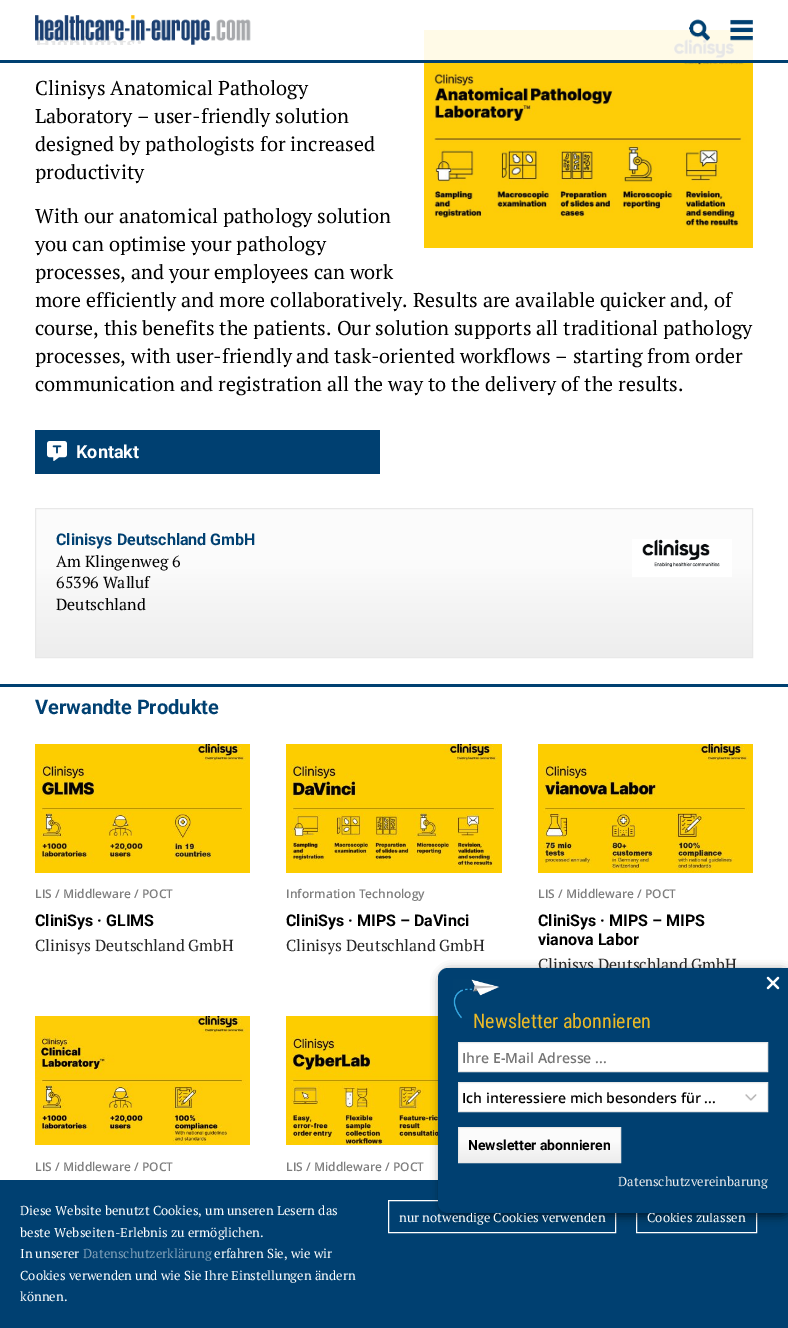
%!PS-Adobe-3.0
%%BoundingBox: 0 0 788 1328
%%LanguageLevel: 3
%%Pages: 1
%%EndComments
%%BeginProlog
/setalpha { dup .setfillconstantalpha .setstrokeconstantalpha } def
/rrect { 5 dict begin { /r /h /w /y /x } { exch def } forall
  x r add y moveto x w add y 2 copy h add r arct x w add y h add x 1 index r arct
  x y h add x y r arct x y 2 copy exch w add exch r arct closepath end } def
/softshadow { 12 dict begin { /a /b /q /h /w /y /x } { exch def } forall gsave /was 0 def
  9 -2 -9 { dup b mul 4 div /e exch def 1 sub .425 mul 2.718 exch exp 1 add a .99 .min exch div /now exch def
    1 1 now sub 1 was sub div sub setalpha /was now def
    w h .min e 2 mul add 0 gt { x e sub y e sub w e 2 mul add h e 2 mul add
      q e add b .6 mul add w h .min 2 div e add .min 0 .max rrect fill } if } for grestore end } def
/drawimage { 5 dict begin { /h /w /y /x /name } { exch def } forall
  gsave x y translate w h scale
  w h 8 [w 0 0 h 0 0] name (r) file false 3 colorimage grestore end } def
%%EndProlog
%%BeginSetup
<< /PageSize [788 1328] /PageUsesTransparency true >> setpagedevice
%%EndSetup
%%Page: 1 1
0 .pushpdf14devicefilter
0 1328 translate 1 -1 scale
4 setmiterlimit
1 setgray
0 0 788 1328 rectfill
(images/4.raw) 424 30 329 218 drawimage
0.9 setalpha
424 30 329 30 rectfill
1 setalpha
0 0.251 0.443 setrgbcolor
0 60 788 3 rectfill
(images/1.raw) 35 15 216 30 drawimage
(images/2.raw) 689 19 21 22 drawimage
(images/3.raw) 730 19 23 22 drawimage
35 430 345 44 rectfill
(images/5.raw) 47 441 20 20 drawimage
gsave newpath 36 509 moveto 752 509 lineto 752 657 lineto 36 657 lineto closepath clip newpath
<< /ShadingType 2 /ColorSpace /DeviceRGB /Coords [394 509 394 657] /Extend [true true] /Function << /FunctionType 3 /Domain [0 1] /Functions [<< /FunctionType 2 /Domain [0 1] /C0 [0.984 0.984 0.984] /C1 [0.984 0.984 0.984] /N 1 >> << /FunctionType 2 /Domain [0 1] /C0 [0.984 0.984 0.984] /C1 [0.929 0.929 0.929] /N 1 >>] /Bounds [0.38] /Encode [0 1 0 1] >> >> shfill grestore
0.91 setgray
35.5 508.5 717 149 rectstroke
(images/6.raw) 632 539 100 38 drawimage
0 0.251 0.443 setrgbcolor
0 684 788 3 rectfill
(images/7.raw) 35 744 215 129 drawimage
(images/8.raw) 286 744 216 129 drawimage
(images/9.raw) 538 744 215 129 drawimage
(images/10.raw) 35 1016 215 129 drawimage
(images/11.raw) 286 1016 152 129 drawimage
0 1180 788 148 rectfill
1 setgray
388.5 1200.5 227 32 rectstroke
636.5 1200.5 120 32 rectstroke
0 setgray
441 971 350 245 10 5 0.6 softshadow
/PTSerif-Regular [20 0 0 -20 0 0] selectfont
35 95 moveto (Clinisys Anatomical Pathology) show
35 123 moveto (Laboratory – user-friendly solution) show
35 151 moveto (designed by pathologists for increased) show
35 179 moveto (productivity) show
35 223 moveto (With our anatomical pathology solution) show
35 251 moveto (you can optimise your pathology) show
35 279 moveto (processes, and your employees can work) show
35 307 moveto (more efficiently and more collaboratively. Results are available quicker and, of) show
35 335 moveto (course, this benefits the patients. Our solution supports all traditional pathology) show
35 363 moveto (processes, with user-friendly and task-oriented workflows – starting from order) show
35 391 moveto (communication and registration all the way to the delivery of the results.) show
/Roboto-Bold [18 0 0 -18 0 0] selectfont
1 setgray
76 458 moveto (Kontakt) show
/Roboto-Bold [16 0 0 -16 0 0] selectfont
0 0.251 0.443 setrgbcolor
56 545 moveto (Clinisys Deutschland GmbH) show
/PTSerif-Regular [16 0 0 -16 0 0] selectfont
0 setgray
56 567 moveto (Am Klingenweg 6) show
56 588 moveto (65396 Walluf) show
56 610 moveto (Deutschland) show
/Roboto-Bold [20 0 0 -20 0 0] selectfont
0 0.251 0.443 setrgbcolor
35 714 moveto (Verwandte Produkte) show
/OpenSans-SemiBold [12 0 0 -12 0 0] selectfont
0.494 setgray
35 898 moveto (LIS / Middleware / POCT) show
/Roboto-Bold [16 0 0 -16 0 0] selectfont
0 setgray
35 926 moveto (CliniSys · GLIMS) show
/PTSerif-Regular [16 0 0 -16 0 0] selectfont
0.149 setgray
35 951 moveto (Clinisys Deutschland GmbH) show
/OpenSans-SemiBold [12 0 0 -12 0 0] selectfont
0.494 setgray
286 898 moveto (Information Technology) show
/Roboto-Bold [16 0 0 -16 0 0] selectfont
0 setgray
286 926 moveto (CliniSys · MIPS – DaVinci) show
/PTSerif-Regular [16 0 0 -16 0 0] selectfont
0.149 setgray
286 951 moveto (Clinisys Deutschland GmbH) show
/OpenSans-SemiBold [12 0 0 -12 0 0] selectfont
0.494 setgray
538 898 moveto (LIS / Middleware / POCT) show
/Roboto-Bold [16 0 0 -16 0 0] selectfont
0 setgray
538 926 moveto (CliniSys · MIPS – MIPS) show
538 945 moveto (vianova Labor) show
/PTSerif-Regular [16 0 0 -16 0 0] selectfont
0.149 setgray
538 970 moveto (Clinisys Deutschland GmbH) show
/OpenSans-SemiBold [12 0 0 -12 0 0] selectfont
0.494 setgray
35 1171 moveto (LIS / Middleware / POCT) show
286 1171 moveto (LIS / Middleware / POCT) show
/PTSerif-Regular [13 0 0 -13 0 0] selectfont
1 setgray
20 1215 moveto (Diese Website benutzt Cookies, um unseren Lesern das) show
20 1237 moveto (beste Webseiten-Erlebnis zu ermöglichen.) show
20 1258 moveto (In unserer) show
0.502 0.627 0.722 setrgbcolor
83 1258 moveto (Datenschutzerklärung) show
1 setgray
214 1258 moveto (erfahren Sie, wie wir) show
20 1280 moveto (Cookies verwenden und wie Sie Ihre Einstellungen ändern) show
20 1301 moveto (können.) show
399 1222 moveto (nur notwendige Cookies verwenden) show
647 1222 moveto (Cookies zulassen) show
0 0.251 0.443 setrgbcolor
newpath 448 968 moveto 788 968 lineto 788 1213 lineto 448 1213 lineto 442.5 1213 438 1208.5 438 1203 curveto 438 978 lineto 438 972.5 442.5 968 448 968 curveto closepath fill
gsave newpath 459 1128 moveto 620 1128 lineto 620 1162 lineto 459 1162 lineto closepath clip newpath
<< /ShadingType 2 /ColorSpace /DeviceRGB /Coords [540 1128 540 1162] /Extend [true true] /Function << /FunctionType 3 /Domain [0 1] /Functions [<< /FunctionType 2 /Domain [0 1] /C0 [0.984 0.984 0.984] /C1 [0.984 0.984 0.984] /N 1 >> << /FunctionType 2 /Domain [0 1] /C0 [0.984 0.984 0.984] /C1 [0.929 0.929 0.929] /N 1 >>] /Bounds [0.38] /Encode [0 1 0 1] >> >> shfill grestore
0.91 setgray
458.5 1127.5 162 35 rectstroke
/Roboto-Bold [14 0 0 -14 0 0] selectfont
0 setgray
468 1150 moveto (Newsletter abonnieren) show
(images/12.raw) 766 976 14 14 drawimage
1 setgray
459 1083 308 28 rectfill
(images/14.raw) 745 1094 12 7 drawimage
0.91 setgray
458.5 1082.5 309 29 rectstroke
/OpenSans-SemiBold [14 0 0 -14 0 0] selectfont
0 setgray
462 1103 moveto (Ich interessiere mich besonders für ...) show
1 setgray
newpath 458.5 1042.5 moveto 767.5 1042.5 lineto 767.5 1071.5 lineto 458.5 1071.5 lineto closepath gsave fill grestore
0.91 setgray
stroke
0.459 setgray
462 1063 moveto (Ihre E-Mail Adresse ...) show
/PTSerif-Regular [13 0 0 -13 0 0] selectfont
0.929 setgray
618 1186 moveto (Datenschutzvereinbarung) show
(images/13.raw) 453 979 47 40 drawimage
/RobotoCondensed-Regular [20 0 0 -20 0 0] selectfont
0.925 0.729 0.153 setrgbcolor
473 1028 moveto (Newsletter abonnieren) show
.poppdf14devicefilter showpage
%%EOF
